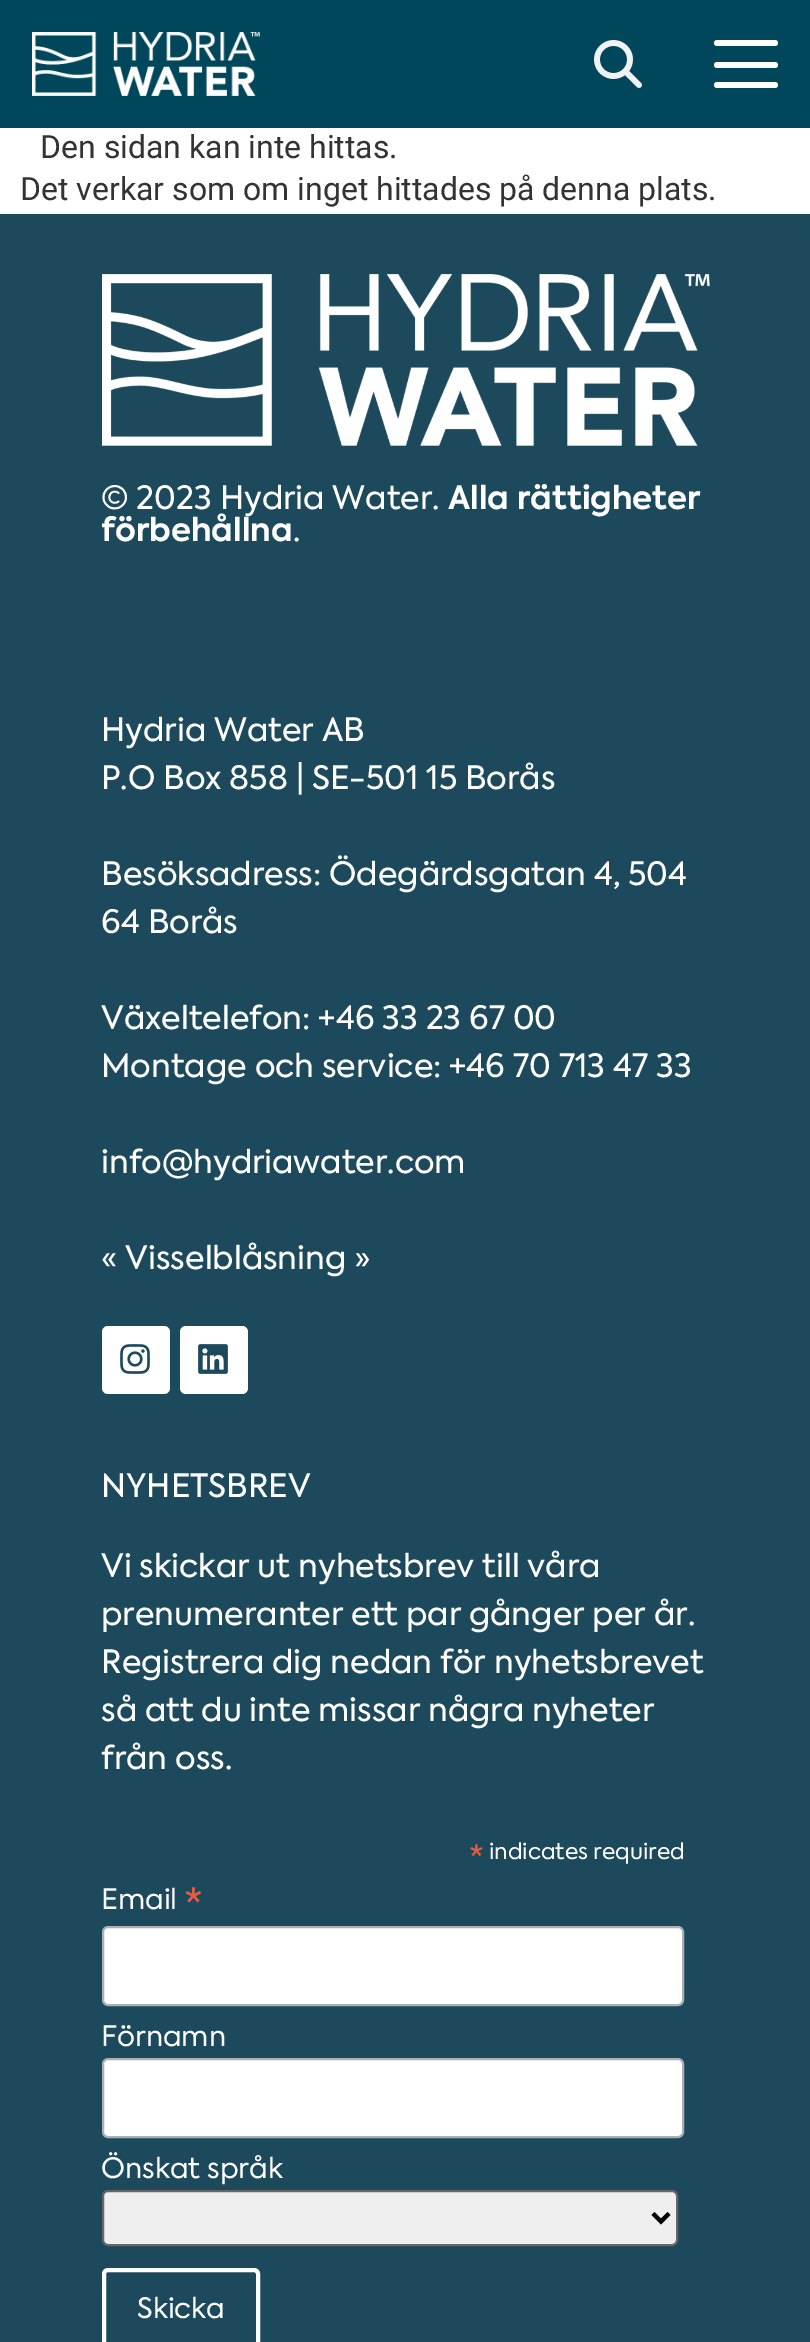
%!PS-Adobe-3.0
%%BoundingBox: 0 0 810 2342
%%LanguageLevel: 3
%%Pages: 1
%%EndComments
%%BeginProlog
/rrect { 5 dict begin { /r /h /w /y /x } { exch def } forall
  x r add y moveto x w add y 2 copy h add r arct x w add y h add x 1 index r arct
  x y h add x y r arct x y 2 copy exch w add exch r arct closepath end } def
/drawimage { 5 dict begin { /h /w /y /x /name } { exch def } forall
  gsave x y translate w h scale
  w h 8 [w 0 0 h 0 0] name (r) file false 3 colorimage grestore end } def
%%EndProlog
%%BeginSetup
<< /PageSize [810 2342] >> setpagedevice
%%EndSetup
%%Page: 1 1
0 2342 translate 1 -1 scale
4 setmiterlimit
1 setgray
0 0 810 2342 rectfill
0 0.278 0.357 setrgbcolor
0 0 810 128 rectfill
(images/1.raw) 32 32 228 64 drawimage
(images/2.raw) 594 40 48 48 drawimage
1 setgray
714 40 64 6 3 rrect fill
714 62 64 6 3 rrect fill
714 82 64 6 3 rrect fill
0.11 0.286 0.357 setrgbcolor
0 214 810 2128 rectfill
(images/3.raw) 102 274 608 172 drawimage
1 setgray
102 1326 68 68 6 rrect fill
(images/4.raw) 120 1344 30 30 drawimage
180 1326 68 68 6 rrect fill
(images/5.raw) 198 1344 30 30 drawimage
103 1927 580 78 5 rrect gsave fill grestore
0.671 0.69 0.698 setrgbcolor
2 setlinewidth
stroke
1 setgray
103 2059 580 78 5 rrect gsave fill grestore
0.671 0.69 0.698 setrgbcolor
stroke
0.937 setgray
103 2191 574 54 5 rrect gsave fill grestore
0.4 setgray
stroke
0 setgray
4 setlinewidth
newpath 653 2213.5 moveto 661 2221.5 lineto 669 2213.5 lineto stroke
1 setgray
104 2270 154 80 4 rrect stroke
/Roboto-Regular [32 0 0 -32 0 0] selectfont
0.2 setgray
40 158 moveto (Den sidan kan inte hittas.) show
20 200 moveto (Det verkar som om inget hittades på denna plats.) show
/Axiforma-Regular [32 0 0 -32 0 0] selectfont
1 setgray
101 509 moveto (© 2023 Hydria Water.) show
/Axiforma-Bold [32 0 0 -32 0 0] selectfont
448 509 moveto (Alla rättigheter) show
101 541 moveto (förbehållna) show
/Axiforma-Regular [32 0 0 -32 0 0] selectfont
293 541 moveto (.) show
101 741 moveto (Hydria Water AB) show
101 789 moveto (P.O Box 858 | SE-501 15 Borås) show
101 885 moveto (Besöksadress: Ödegärdsgatan 4, 504) show
101 933 moveto (64 Borås) show
101 1029 moveto (Växeltelefon: +46 33 23 67 00) show
101 1077 moveto (Montage och service: +46 70 713 47 33) show
101 1173 moveto (info@hydriawater.com) show
101 1269 moveto (« Visselblåsning ») show
101 1497 moveto (NYHETSBREV) show
101 1577 moveto (Vi skickar ut nyhetsbrev till våra) show
101 1625 moveto (prenumeranter ett par gånger per år.) show
101 1673 moveto (Registrera dig nedan för nyhetsbrevet) show
101 1721 moveto (så att du inte missar några nyheter) show
101 1769 moveto (från oss.) show
/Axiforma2-Regular [33 0 0 -33 0 0] selectfont
0.91 0.361 0.255 setrgbcolor
469 1869 moveto (*) show
/Axiforma2-Regular [22 0 0 -22 0 0] selectfont
1 setgray
489 1859 moveto (indicates required) show
/Axiforma2-Regular [28 0 0 -28 0 0] selectfont
101 1909 moveto (Email) show
/Axiforma2-Regular [42 0 0 -42 0 0] selectfont
0.91 0.361 0.255 setrgbcolor
184 1919 moveto (*) show
/Axiforma2-Regular [28 0 0 -28 0 0] selectfont
1 setgray
101 2046 moveto (Förnamn) show
101 2178 moveto (Önskat språk) show
137 2318 moveto (Skicka) show
showpage
%%EOF
